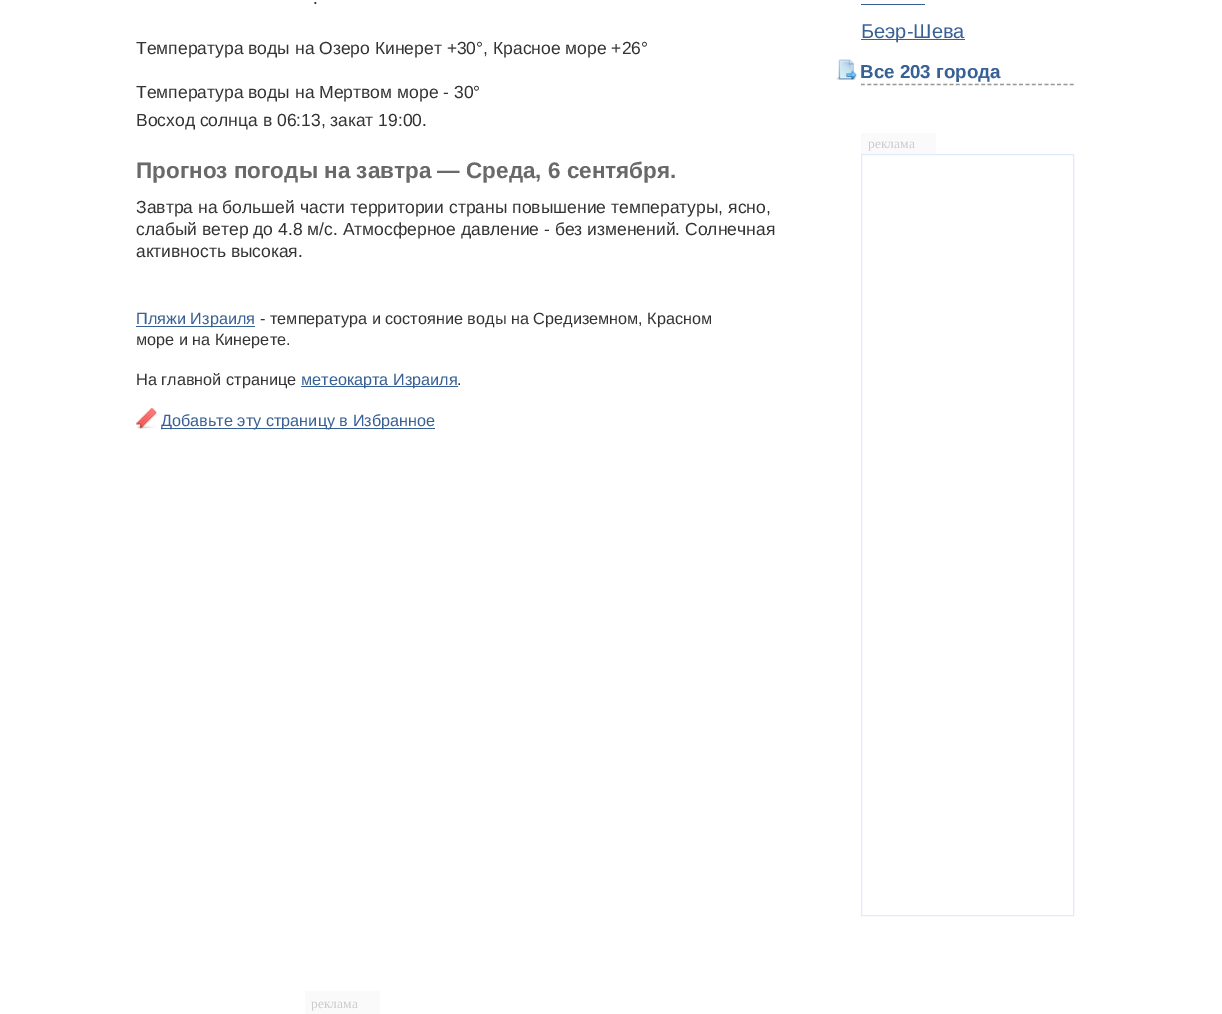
%!PS-Adobe-3.0
%%BoundingBox: 0 0 1222 1014
%%LanguageLevel: 3
%%Pages: 1
%%EndComments
%%BeginProlog
/drawimage { 5 dict begin { /h /w /y /x /name } { exch def } forall
  gsave x y translate w h scale
  w h 8 [w 0 0 h 0 0] name (r) file false 3 colorimage grestore end } def
%%EndProlog
%%BeginSetup
<< /PageSize [1222 1014] >> setpagedevice
%%EndSetup
%%Page: 1 1
0 1014 translate 1 -1 scale
4 setmiterlimit
1 setgray
0 0 1222 1014 rectfill
0.216 0.376 0.58 setrgbcolor
136 326 119 1 rectfill
301 386 157 1 rectfill
(images/1.raw) 136 408 21 21 drawimage
161 428 274 1 rectfill
861 4 64 1 rectfill
861 39 104 1 rectfill
0.6 setgray
1.2 setlinewidth
[3.75 2.58] 0 setdash
newpath 861 84.5 moveto 1074 84.5 lineto stroke
(images/2.raw) 836 59 21 21 drawimage
0.98 setgray
861 133 75 21 rectfill
0.875 0.918 0.992 setrgbcolor
1 setlinewidth
[] 0 setdash
861.5 154.5 212 761 rectstroke
0.98 setgray
305 991 75 23 rectfill
/LiberationSans-Regular [17.5 0 0 -17.5 0 0] selectfont
0.2 setgray
313 4 moveto (.) show
136 54 moveto (Температура воды на Озеро Кинерет +30°, Красное море +26°) show
136 98 moveto (Температура воды на Мертвом море - 30°) show
136 126 moveto (Восход солнца в 06:13, закат 19:00.) show
/LiberationSans-Bold [22.5 0 0 -22.5 0 0] selectfont
0.412 setgray
136 178 moveto (Прогноз погоды на завтра — Среда, 6 сентября.) show
/LiberationSans-Regular [17.5 0 0 -17.5 0 0] selectfont
0.2 setgray
136 213 moveto (Завтра на большей части территории страны повышение температуры, ясно,) show
136 235 moveto (слабый ветер до 4.8 м/с. Атмосферное давление - без изменений. Солнечная) show
136 257 moveto (активность высокая.) show
/LiberationSans-Regular [16.25 0 0 -16.25 0 0] selectfont
0.216 0.376 0.58 setrgbcolor
136 324 moveto (Пляжи Израиля) show
0.2 setgray
260 324 moveto (- температура и состояние воды на Средиземном, Красном) show
136 345 moveto (море и на Кинерете.) show
136 385 moveto (На главной странице) show
0.216 0.376 0.58 setrgbcolor
301 385 moveto (метеокарта Израиля) show
0.2 setgray
457 385 moveto (.) show
0.216 0.376 0.58 setrgbcolor
161 426 moveto (Добавьте эту страницу в Избранное) show
/LiberationSans-Regular [20 0 0 -20 0 0] selectfont
861 38 moveto (Беэр-Шева) show
/LiberationSans-Bold [18.75 0 0 -18.75 0 0] selectfont
860 78 moveto (Все 203 города) show
/LiberationSerif-Regular [13.5 0 0 -13.5 0 0] selectfont
0.8 setgray
868 148 moveto (реклама) show
311 1008 moveto (реклама) show
showpage
%%EOF
